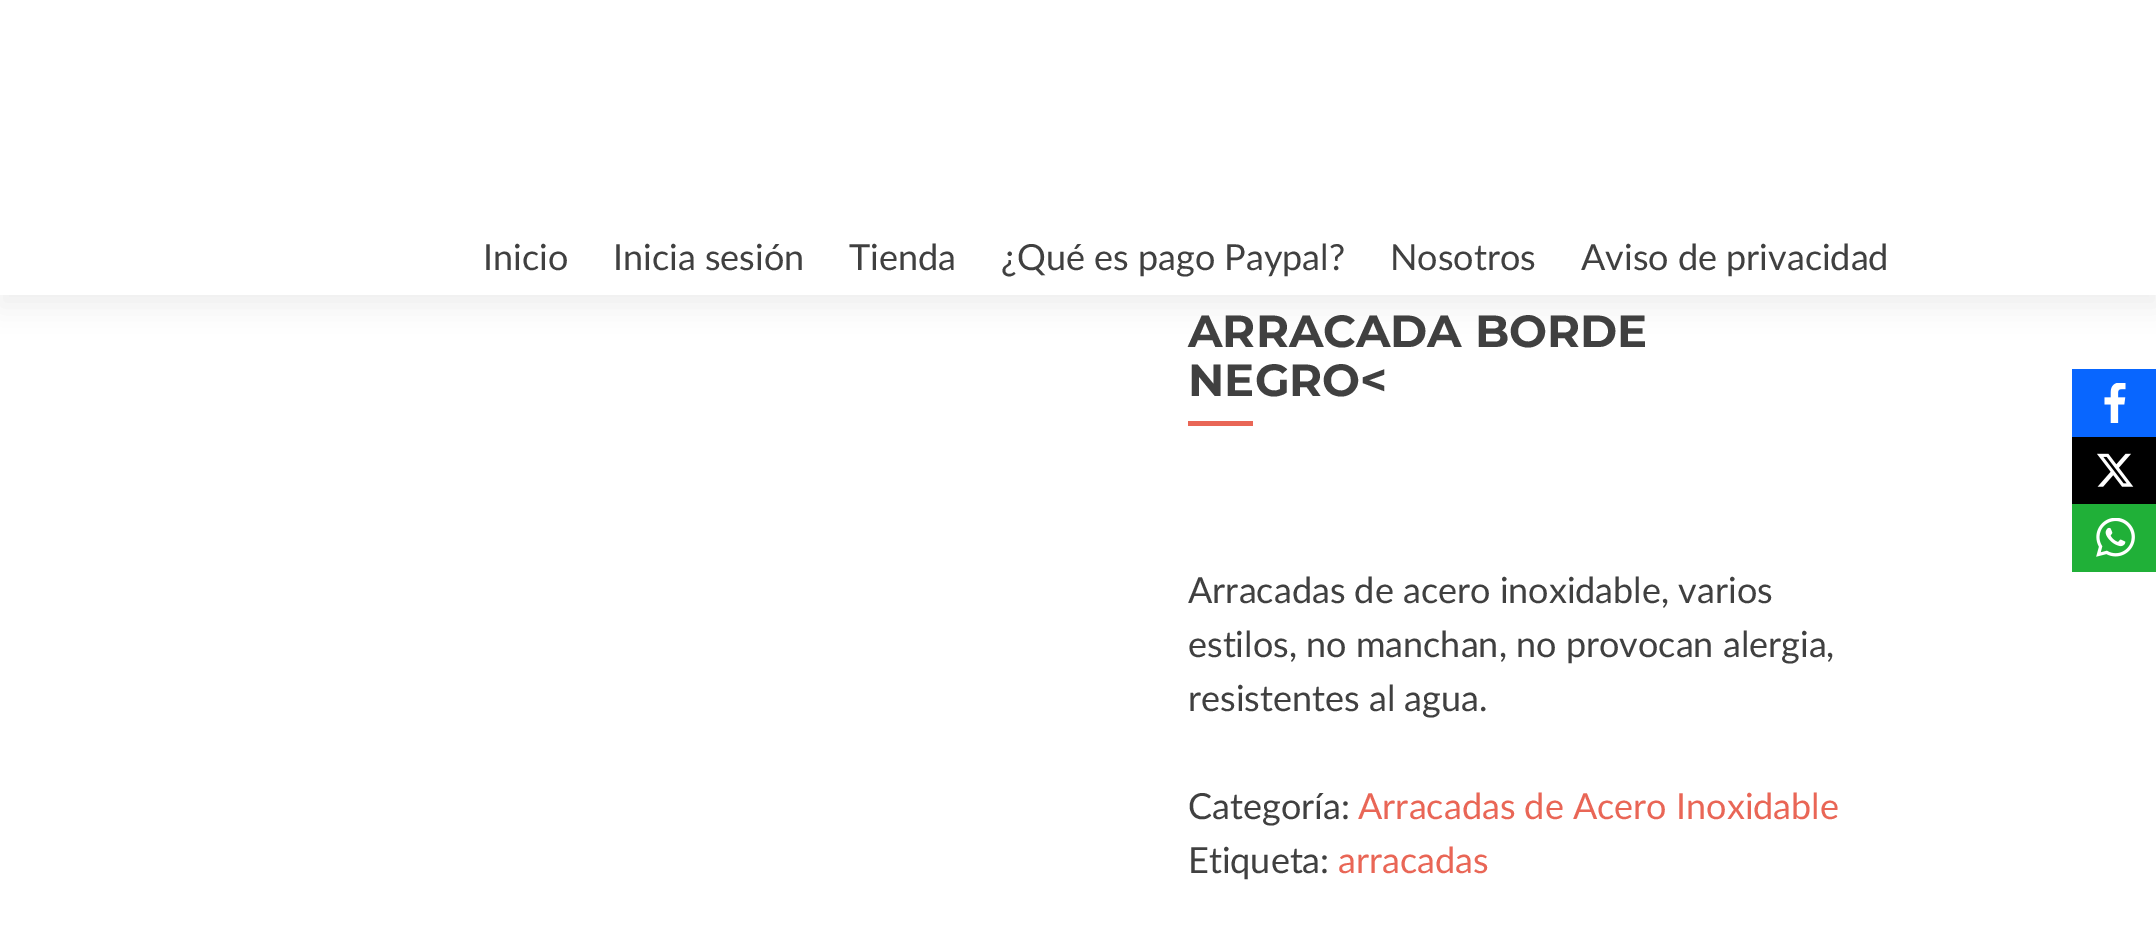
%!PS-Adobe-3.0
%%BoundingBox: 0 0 2156 937
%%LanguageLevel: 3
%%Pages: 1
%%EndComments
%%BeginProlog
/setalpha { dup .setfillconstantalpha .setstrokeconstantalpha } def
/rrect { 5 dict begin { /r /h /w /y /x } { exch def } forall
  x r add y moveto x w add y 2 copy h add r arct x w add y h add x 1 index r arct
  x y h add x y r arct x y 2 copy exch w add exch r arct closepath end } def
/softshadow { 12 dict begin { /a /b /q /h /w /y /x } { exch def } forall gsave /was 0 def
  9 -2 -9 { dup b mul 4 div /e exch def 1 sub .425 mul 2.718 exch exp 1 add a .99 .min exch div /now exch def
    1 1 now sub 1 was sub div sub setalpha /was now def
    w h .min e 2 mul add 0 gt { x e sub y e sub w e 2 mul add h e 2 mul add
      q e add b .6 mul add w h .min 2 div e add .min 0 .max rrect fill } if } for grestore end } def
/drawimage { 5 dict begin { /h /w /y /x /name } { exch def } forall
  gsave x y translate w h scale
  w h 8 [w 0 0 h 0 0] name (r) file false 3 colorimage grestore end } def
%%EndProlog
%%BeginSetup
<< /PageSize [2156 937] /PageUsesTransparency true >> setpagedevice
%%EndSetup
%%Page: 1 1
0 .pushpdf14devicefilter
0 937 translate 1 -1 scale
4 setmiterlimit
1 setgray
0 0 2156 937 rectfill
0.196 setgray
0 11 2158 295 0 12.5 0.08 softshadow
1 setgray
0 0 2156 295 rectfill
0.914 0.4 0.337 setrgbcolor
1188 421 65 5 rectfill
0.031 0.4 1 setrgbcolor
2072 369 84 68 rectfill
(images/1.raw) 2104 383 22 40 drawimage
0 setgray
2072 437 84 67 rectfill
(images/2.raw) 2097 453 37 34 drawimage
0.125 0.69 0.22 setrgbcolor
2072 504 84 68 rectfill
(images/3.raw) 2096 518 39 39 drawimage
/Lato-Regular [36 0 0 -36 0 0] selectfont
0.251 setgray
483 270 moveto (Inicio) show
613 270 moveto (Inicia sesión) show
849 270 moveto (Tienda) show
1001 270 moveto (¿Qué es pago Paypal?) show
1390 270 moveto (Nosotros) show
1581 270 moveto (Aviso de privacidad) show
/Montserrat-Bold [45 0 0 -45 0 0] selectfont
1188 347 moveto (ARRACADA BORDE) show
1188 396 moveto (NEGRO<) show
/Lato-Regular [36 0 0 -36 0 0] selectfont
1188 603 moveto (Arracadas de acero inoxidable, varios) show
1188 657 moveto (estilos, no manchan, no provocan alergia,) show
1188 711 moveto (resistentes al agua.) show
1188 819 moveto (Categoría:) show
0.914 0.4 0.337 setrgbcolor
1358 819 moveto (Arracadas de Acero Inoxidable) show
0.251 setgray
1188 873 moveto (Etiqueta:) show
0.914 0.4 0.337 setrgbcolor
1338 873 moveto (arracadas) show
.poppdf14devicefilter showpage
%%EOF
